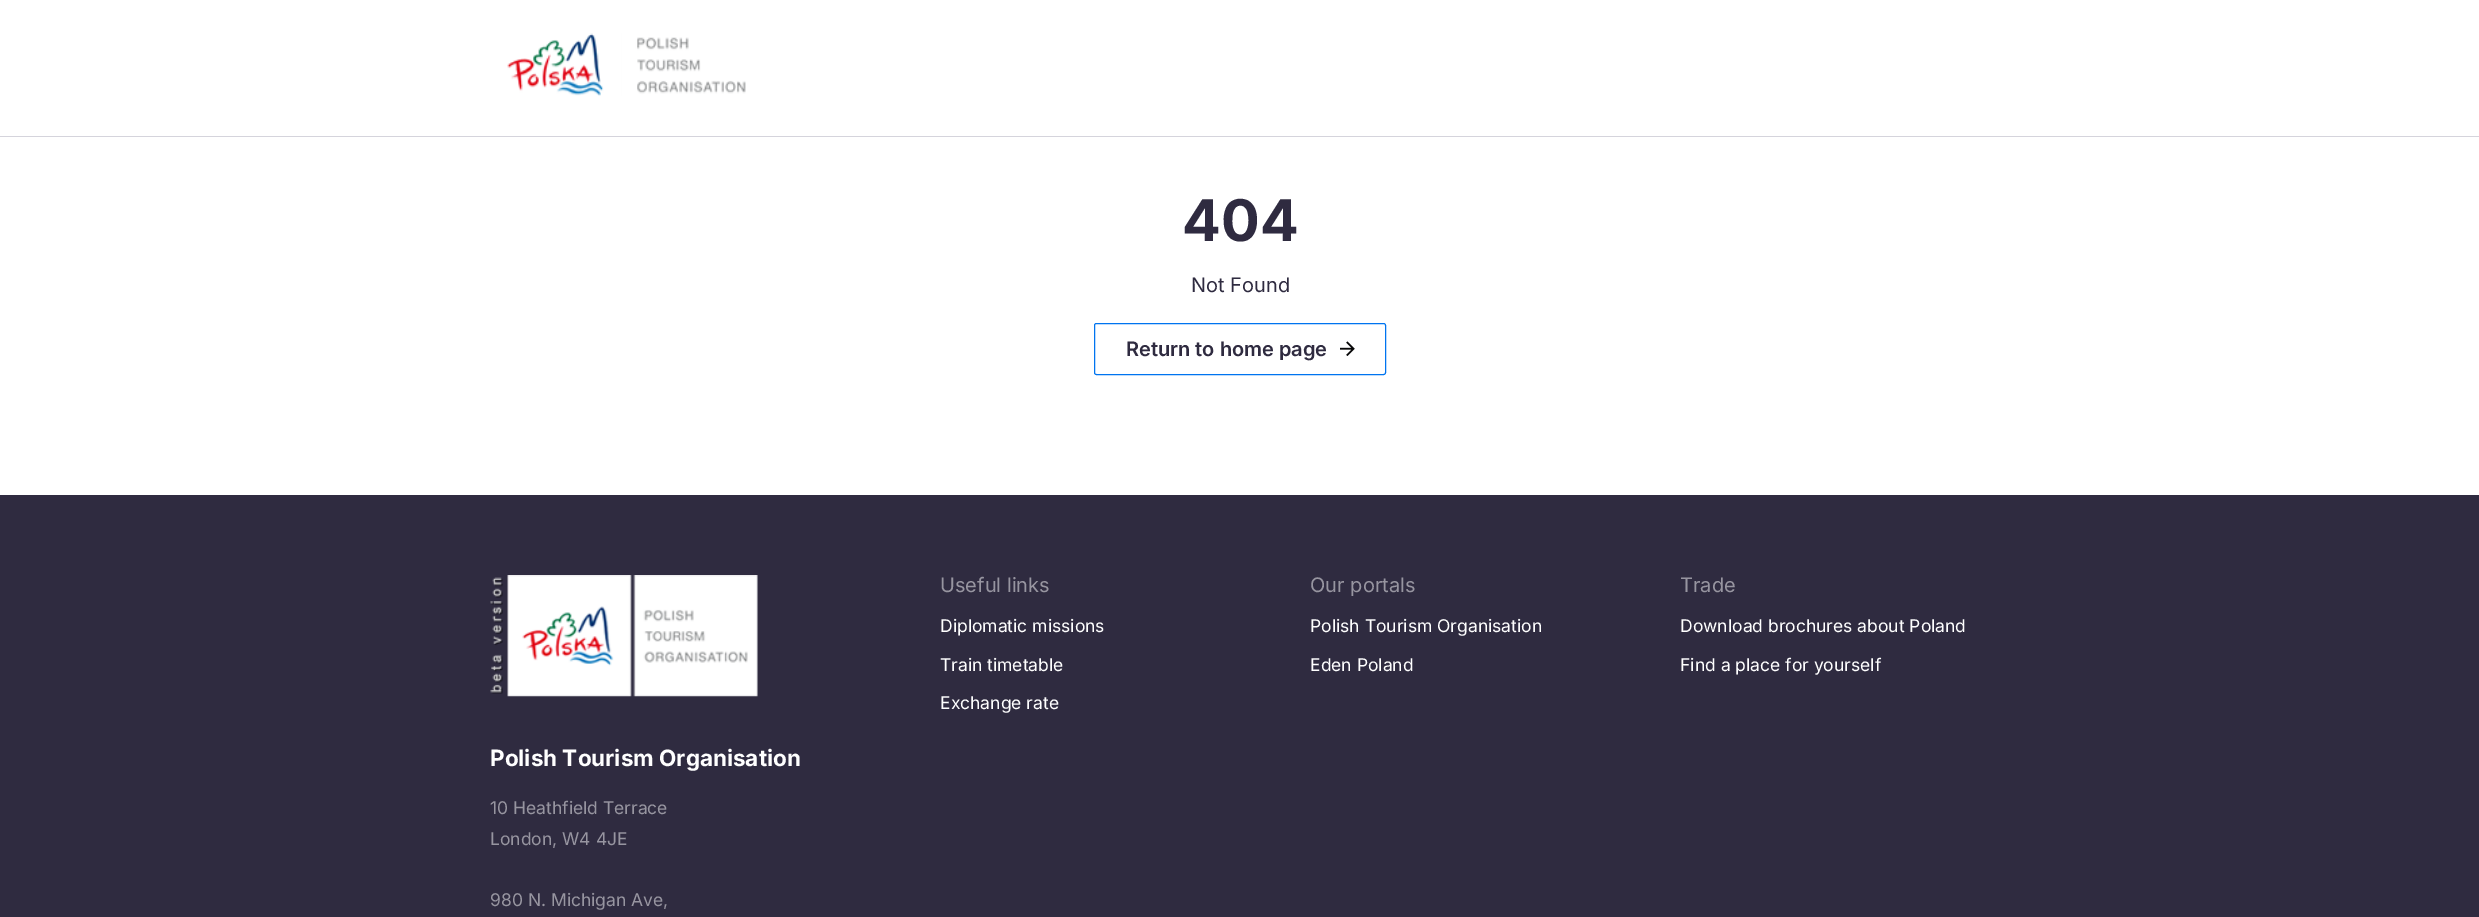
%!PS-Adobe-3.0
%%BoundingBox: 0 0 2479 917
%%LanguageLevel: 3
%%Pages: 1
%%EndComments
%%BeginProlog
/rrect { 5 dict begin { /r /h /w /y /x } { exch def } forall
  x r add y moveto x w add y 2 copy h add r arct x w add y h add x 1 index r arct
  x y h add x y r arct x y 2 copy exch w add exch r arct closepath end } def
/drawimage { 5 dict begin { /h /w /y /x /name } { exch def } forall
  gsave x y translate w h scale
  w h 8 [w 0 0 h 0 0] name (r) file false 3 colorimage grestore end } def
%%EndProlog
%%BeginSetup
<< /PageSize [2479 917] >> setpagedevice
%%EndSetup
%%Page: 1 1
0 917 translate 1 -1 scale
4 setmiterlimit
1 setgray
0 0 2479 917 rectfill
0.835 0.831 0.863 setrgbcolor
0 136 2479 1 rectfill
(images/1.raw) 507 33 239 63 drawimage
0 0.455 0.941 setrgbcolor
1094.5 323.5 291 51 2 rrect stroke
(images/2.raw) 1340 341 15 15 drawimage
0.184 0.169 0.251 setrgbcolor
0 495 2479 422 rectfill
(images/3.raw) 490 575 268 122 drawimage
/Inter-Bold [57.5 0 0 -57.5 0 0] selectfont
1182 241 moveto (404) show
/Inter-Regular [20 0 0 -20 0 0] selectfont
1191 292 moveto (Not Found) show
/Inter-SemiBold [20 0 0 -20 0 0] selectfont
1126 356 moveto (Return to home page) show
/Inter-Regular [20 0 0 -20 0 0] selectfont
0.592 0.584 0.627 setrgbcolor
940 592 moveto (Useful links) show
/Inter-Regular [17.5 0 0 -17.5 0 0] selectfont
1 setgray
940 632 moveto (Diplomatic missions) show
940 671 moveto (Train timetable) show
940 709 moveto (Exchange rate) show
/Inter-Regular [20 0 0 -20 0 0] selectfont
0.592 0.584 0.627 setrgbcolor
1310 592 moveto (Our portals) show
/Inter-Regular [17.5 0 0 -17.5 0 0] selectfont
1 setgray
1310 632 moveto (Polish Tourism Organisation) show
1310 671 moveto (Eden Poland) show
/Inter-Regular [20 0 0 -20 0 0] selectfont
0.592 0.584 0.627 setrgbcolor
1680 592 moveto (Trade) show
/Inter-Regular [17.5 0 0 -17.5 0 0] selectfont
1 setgray
1680 632 moveto (Download brochures about Poland) show
1680 671 moveto (Find a place for yourself) show
/Inter-Bold [22.5 0 0 -22.5 0 0] selectfont
490 766 moveto (Polish Tourism Organisation) show
/Inter-Regular [17.5 0 0 -17.5 0 0] selectfont
0.592 0.584 0.627 setrgbcolor
490 814 moveto (10 Heathfield Terrace) show
490 845 moveto (London, W4 4JE) show
490 906 moveto (980 N. Michigan Ave,) show
showpage
%%EOF
